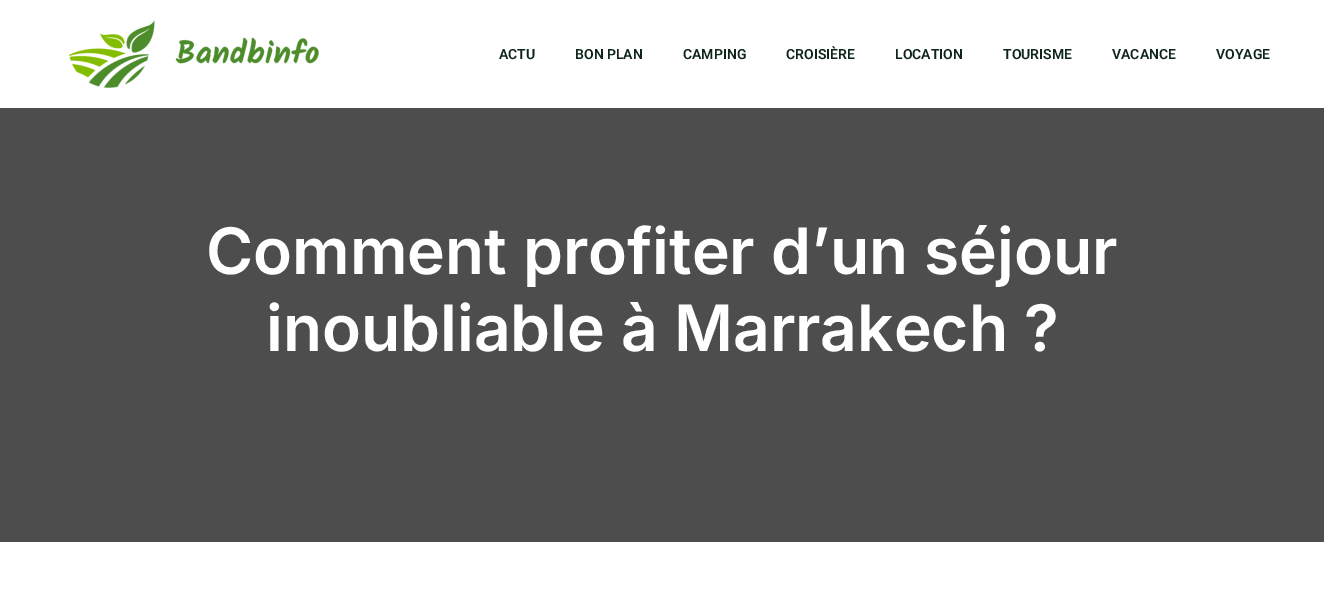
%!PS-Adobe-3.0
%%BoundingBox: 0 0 1324 597
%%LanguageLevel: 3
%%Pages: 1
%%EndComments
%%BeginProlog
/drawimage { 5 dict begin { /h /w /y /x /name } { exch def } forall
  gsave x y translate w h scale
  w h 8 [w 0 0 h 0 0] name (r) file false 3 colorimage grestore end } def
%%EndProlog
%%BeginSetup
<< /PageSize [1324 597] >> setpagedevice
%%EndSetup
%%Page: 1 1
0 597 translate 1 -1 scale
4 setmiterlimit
1 setgray
0 0 1324 597 rectfill
(images/1.raw) 69 20 250 68 drawimage
0.302 setgray
0 108 1324 434 rectfill
/Roboto-SemiBold [14 0 0 -14 0 0] selectfont
0.055 0.145 0.102 setrgbcolor
499 59 moveto (ACTU) show
575 59 moveto (BON PLAN) show
683 59 moveto (CAMPING) show
786 59 moveto (CROISIÈRE) show
895 59 moveto (LOCATION) show
1003 59 moveto (TOURISME) show
1112 59 moveto (VACANCE) show
1216 59 moveto (VOYAGE) show
/Inter-SemiBold [64 0 0 -64 0 0] selectfont
1 setgray
206 274 moveto (Comment profiter d’un séjour) show
266 351 moveto (inoubliable à Marrakech ?) show
showpage
%%EOF
